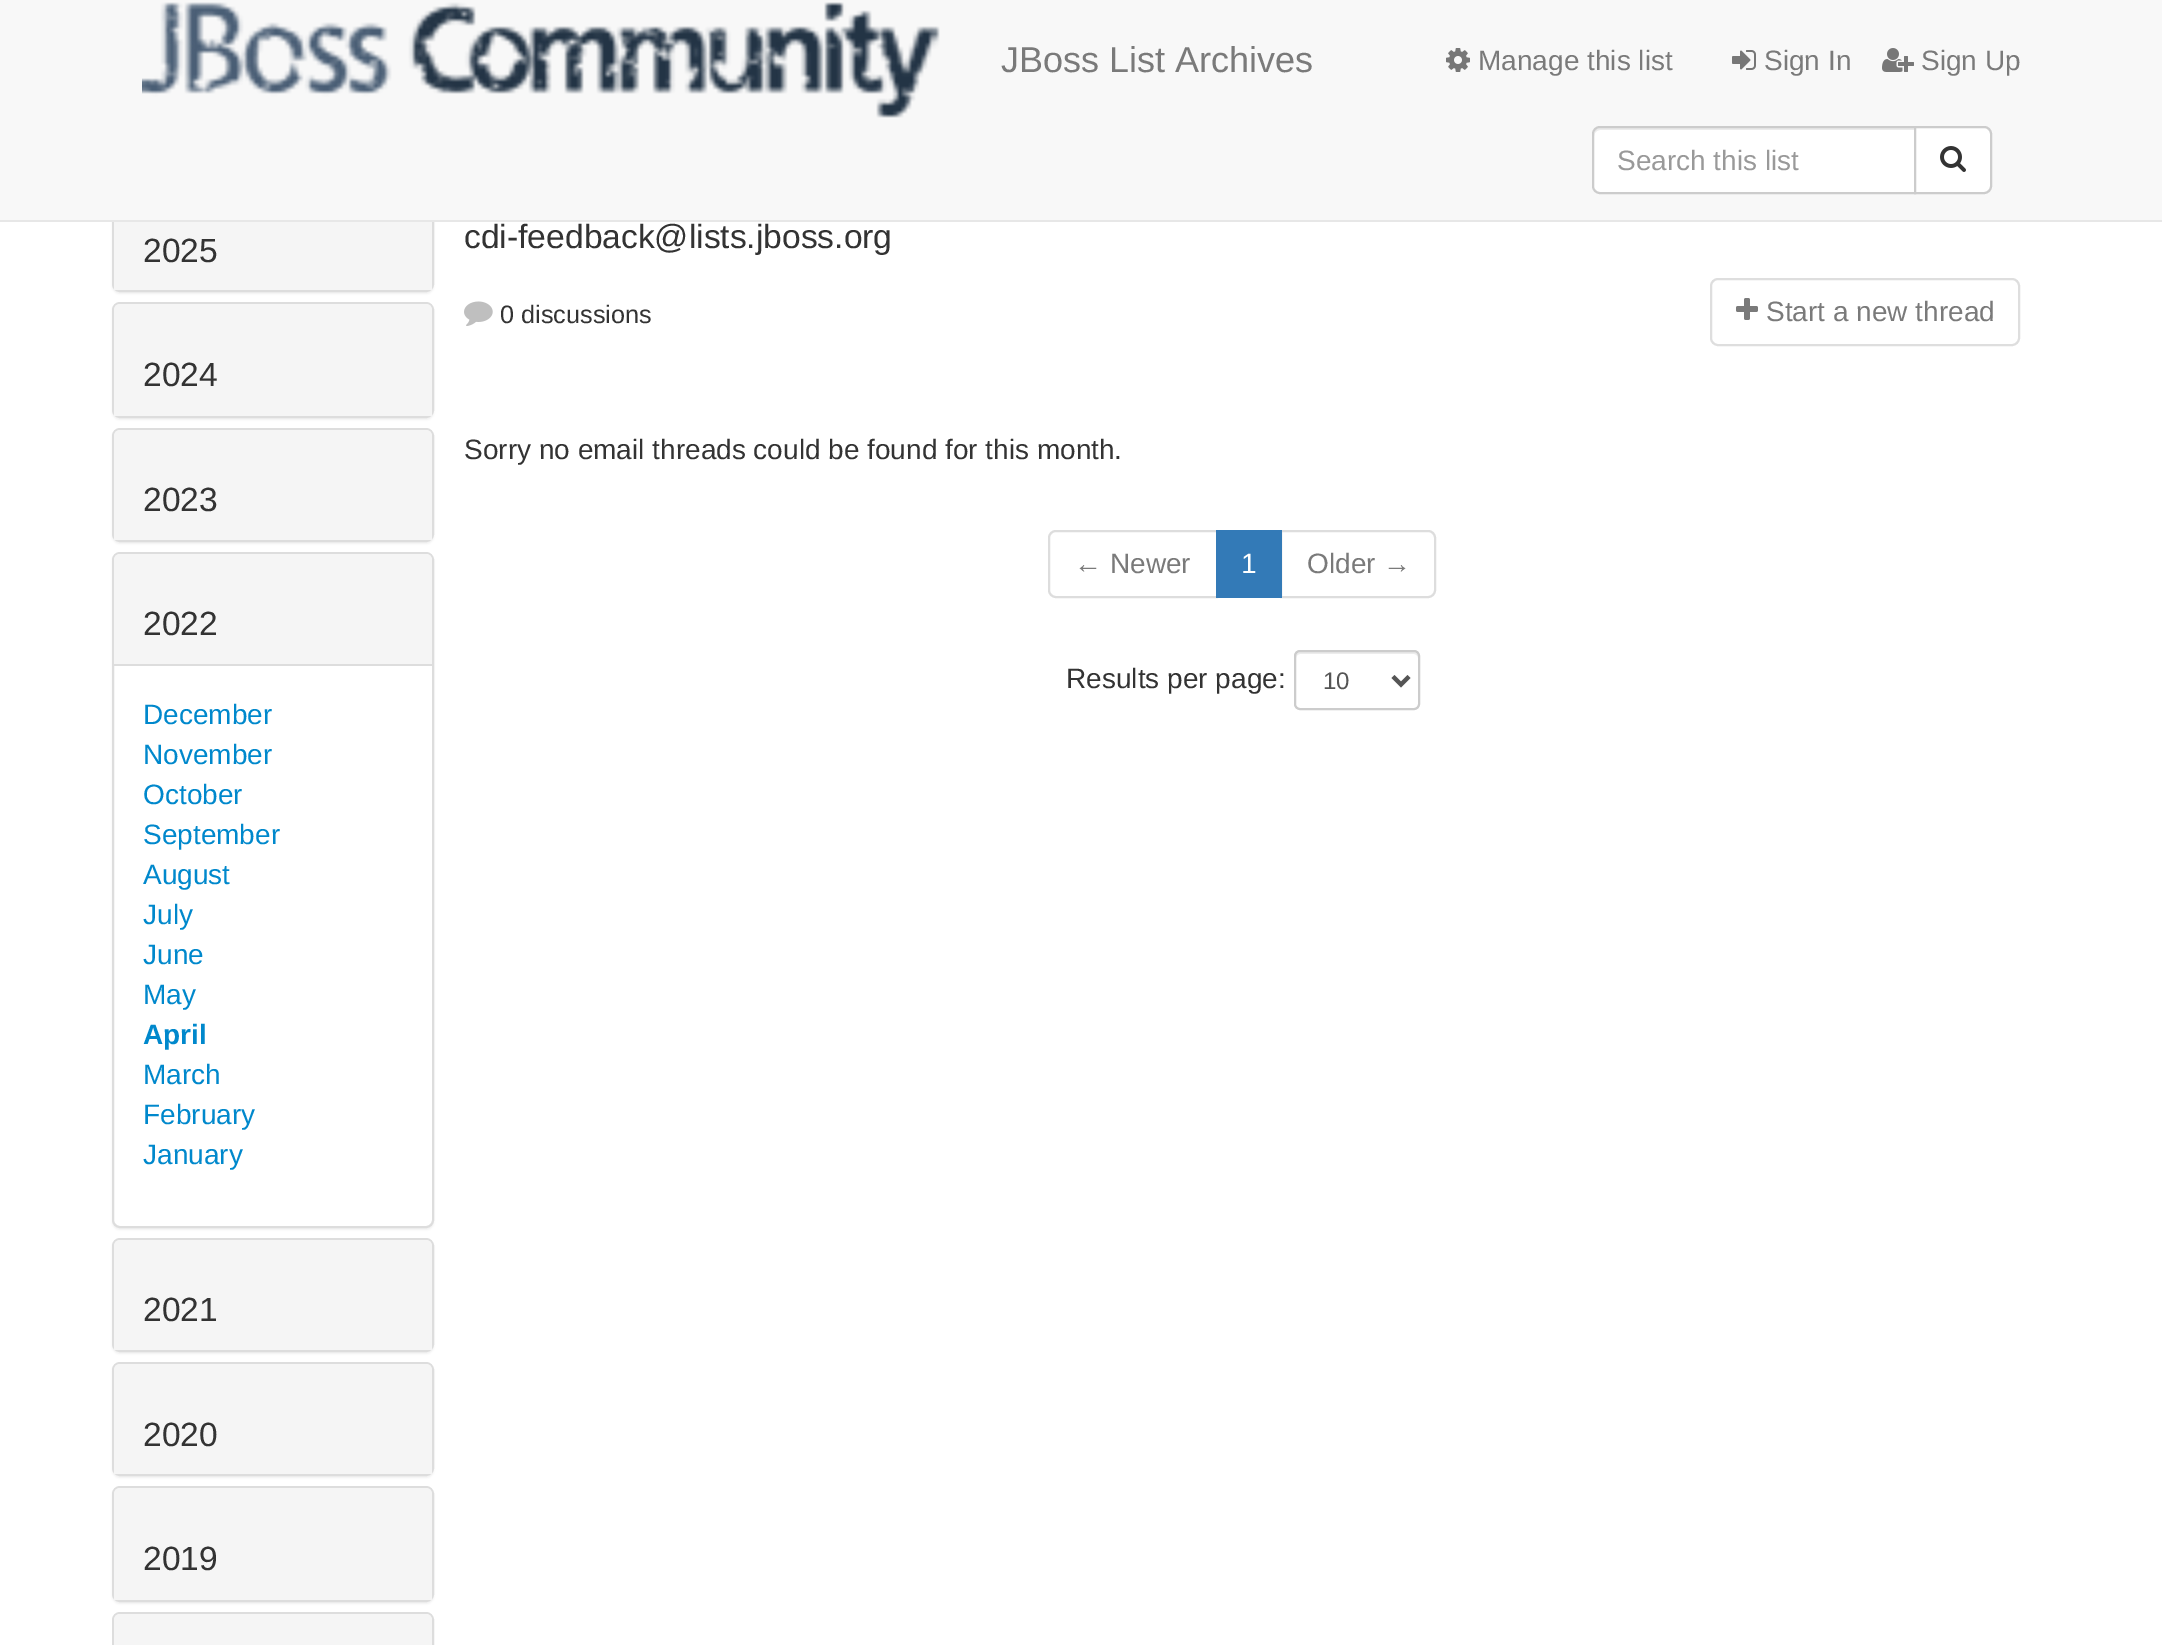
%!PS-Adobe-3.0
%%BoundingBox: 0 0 2162 1645
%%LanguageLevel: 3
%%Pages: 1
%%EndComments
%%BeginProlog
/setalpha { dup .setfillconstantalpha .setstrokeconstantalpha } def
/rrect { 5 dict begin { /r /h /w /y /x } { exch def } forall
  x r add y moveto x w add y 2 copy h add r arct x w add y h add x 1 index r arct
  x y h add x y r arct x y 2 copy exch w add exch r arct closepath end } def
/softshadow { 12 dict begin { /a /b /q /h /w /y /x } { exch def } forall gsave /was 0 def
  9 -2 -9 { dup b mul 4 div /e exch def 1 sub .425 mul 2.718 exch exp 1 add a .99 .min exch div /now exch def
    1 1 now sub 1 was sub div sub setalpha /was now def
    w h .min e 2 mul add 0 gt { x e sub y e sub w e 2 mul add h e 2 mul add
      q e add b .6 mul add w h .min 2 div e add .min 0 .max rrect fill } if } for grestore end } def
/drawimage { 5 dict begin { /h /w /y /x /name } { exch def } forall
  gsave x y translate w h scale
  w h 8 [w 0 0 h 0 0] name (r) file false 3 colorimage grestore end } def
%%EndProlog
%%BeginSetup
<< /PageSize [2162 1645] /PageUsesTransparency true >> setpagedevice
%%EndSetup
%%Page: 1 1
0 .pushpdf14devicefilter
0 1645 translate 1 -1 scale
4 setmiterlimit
1 setgray
0 0 2162 1645 rectfill
0 setgray
112 180 322 114 8 1 0.05 softshadow
0.867 setgray
2 setlinewidth
113 179 320 112 7 rrect stroke
0.973 setgray
0 0 2162 220 rectfill
0.906 setgray
0 220 2162 2 rectfill
(images/1.raw) 142 2 798 116 drawimage
(images/2.raw) 1446 48 24 24 drawimage
(images/3.raw) 1732 50 24 20 drawimage
(images/4.raw) 1882 48 32 24 drawimage
1 setgray
newpath 1600 126 moveto 1916 126 lineto 1916 194 lineto 1600 194 lineto 1595.5 194 1592 190.5 1592 186 curveto 1592 134 lineto 1592 129.5 1595.5 126 1600 126 curveto closepath fill
0.925 setgray
newpath 1600 130 moveto 1914 130 lineto 1914 128 lineto 1599 128 lineto 1595 129 1594 133 1594 136 curveto 1594 133 1597 130 1600 130 curveto closepath fill
0.8 setgray
newpath 1600 127 moveto 1915 127 lineto 1915 193 lineto 1600 193 lineto 1596 193 1593 190 1593 186 curveto 1593 134 lineto 1593 130 1596 127 1600 127 curveto closepath stroke
1 setgray
newpath 1915 127 moveto 1984 127 lineto 1988 127 1991 130 1991 134 curveto 1991 186 lineto 1991 190 1988 193 1984 193 curveto 1915 193 lineto closepath gsave fill grestore
0.8 setgray
stroke
(images/5.raw) 1940 146 26 26 drawimage
0.961 setgray
114 222 318 68 rectfill
0 setgray
112 304 322 116 8 1 0.05 softshadow
0.867 setgray
113 303 320 114 7 rrect stroke
0.961 setgray
newpath 120 304 moveto 426 304 lineto 429.5 304 432 306.5 432 310 curveto 432 416 lineto 114 416 lineto 114 310 lineto 114 306.5 116.5 304 120 304 curveto closepath fill
0 setgray
112 430 322 114 8 1 0.05 softshadow
0.867 setgray
113 429 320 112 7 rrect stroke
0.961 setgray
newpath 120 430 moveto 426 430 lineto 429.5 430 432 432.5 432 436 curveto 432 540 lineto 114 540 lineto 114 436 lineto 114 432.5 116.5 430 120 430 curveto closepath fill
0 setgray
112 554 322 676 8 1 0.05 softshadow
1 setgray
113 553 320 674 7 rrect gsave fill grestore
0.867 setgray
stroke
0.961 setgray
newpath 120 554 moveto 426 554 lineto 429.5 554 432 556.5 432 560 curveto 432 664 lineto 114 664 lineto 114 560 lineto 114 556.5 116.5 554 120 554 curveto closepath fill
0.867 setgray
114 664 318 2 rectfill
0 setgray
112 1240 322 114 8 1 0.05 softshadow
0.867 setgray
113 1239 320 112 7 rrect stroke
0.961 setgray
newpath 120 1240 moveto 426 1240 lineto 429.5 1240 432 1242.5 432 1246 curveto 432 1350 lineto 114 1350 lineto 114 1246 lineto 114 1242.5 116.5 1240 120 1240 curveto closepath fill
0 setgray
112 1364 322 114 8 1 0.05 softshadow
0.867 setgray
113 1363 320 112 7 rrect stroke
0.961 setgray
newpath 120 1364 moveto 426 1364 lineto 429.5 1364 432 1366.5 432 1370 curveto 432 1474 lineto 114 1474 lineto 114 1370 lineto 114 1366.5 116.5 1364 120 1364 curveto closepath fill
0 setgray
112 1488 322 116 8 1 0.05 softshadow
0.867 setgray
113 1487 320 114 7 rrect stroke
0.961 setgray
newpath 120 1488 moveto 426 1488 lineto 429.5 1488 432 1490.5 432 1494 curveto 432 1600 lineto 114 1600 lineto 114 1494 lineto 114 1490.5 116.5 1488 120 1488 curveto closepath fill
0.867 setgray
113 1613 320 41 7 rrect stroke
0.961 setgray
newpath 120 1614 moveto 426 1614 lineto 429.5 1614 432 1616.5 432 1620 curveto 432 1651 lineto 114 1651 lineto 114 1620 lineto 114 1616.5 116.5 1614 120 1614 curveto closepath fill
(images/6.raw) 464 301 29 25 drawimage
0.871 setgray
1711 279 308 66 7 rrect stroke
(images/7.raw) 1736 298 22 22 drawimage
0.867 setgray
newpath 1056 531 moveto 1217 531 lineto 1217 597 lineto 1056 597 lineto 1052 597 1049 594 1049 590 curveto 1049 538 lineto 1049 534 1052 531 1056 531 curveto closepath stroke
newpath 1281 531 moveto 1428 531 lineto 1432 531 1435 534 1435 538 curveto 1435 590 lineto 1435 594 1432 597 1428 597 curveto 1281 597 lineto closepath stroke
0.2 0.478 0.718 setrgbcolor
1216 530 66 68 rectfill
0.925 setgray
newpath 1300 654 moveto 1414 654 lineto 1416 654 1418 656 1418 658 curveto 1418 656 lineto 1418 654 1416 652 1414 652 curveto 1300 652 lineto 1298 652 1296 654 1296 656 curveto 1296 658 lineto 1296 656 1298 654 1300 654 curveto closepath fill
0.8 setgray
1295 651 124 58 5 rrect stroke
0.333 setgray
4 setlinewidth
newpath 1393 676.5 moveto 1401 684.5 lineto 1409 676.5 lineto stroke
/LiberationSans-Regular [36 0 0 -36 0 0] selectfont
0.478 setgray
1001 72 moveto (JBoss List Archives) show
/LiberationSans-Regular [28 0 0 -28 0 0] selectfont
1478 70 moveto (Manage this list) show
1764 70 moveto (Sign In) show
1921 70 moveto (Sign Up) show
0.6 setgray
1617 170 moveto (Search this list) show
/LiberationSans-Regular [33.6 0 0 -33.6 0 0] selectfont
0.2 setgray
143 262 moveto (2025) show
143 386 moveto (2024) show
143 511 moveto (2023) show
143 635 moveto (2022) show
/LiberationSans-Regular [28 0 0 -28 0 0] selectfont
0 0.533 0.8 setrgbcolor
143 724 moveto (December) show
143 764 moveto (November) show
143 804 moveto (October) show
143 844 moveto (September) show
143 884 moveto (August) show
143 924 moveto (July) show
143 964 moveto (June) show
143 1004 moveto (May) show
/LiberationSans-Bold [28 0 0 -28 0 0] selectfont
143 1044 moveto (April) show
/LiberationSans-Regular [28 0 0 -28 0 0] selectfont
143 1084 moveto (March) show
143 1124 moveto (February) show
143 1164 moveto (January) show
/LiberationSans-Regular [33.6 0 0 -33.6 0 0] selectfont
0.2 setgray
143 1321 moveto (2021) show
143 1446 moveto (2020) show
143 1570 moveto (2019) show
464 248 moveto (cdi-feedback@lists.jboss.org) show
/LiberationSans-Regular [25.25 0 0 -25.25 0 0] selectfont
500 323 moveto (0 discussions) show
/LiberationSans-Regular [28 0 0 -28 0 0] selectfont
0.478 setgray
1766 321 moveto (Start a new thread) show
0.2 setgray
464 459 moveto (Sorry no email threads could be found for this month.) show
0.478 setgray
1074 573 moveto (← Newer) show
1 setgray
1241 573 moveto (1) show
0.478 setgray
1307 573 moveto (Older →) show
0.2 setgray
1066 688 moveto (Results per page:) show
/LiberationSans-Regular [24 0 0 -24 0 0] selectfont
0.333 setgray
1323 689 moveto (10) show
.poppdf14devicefilter showpage
%%EOF
